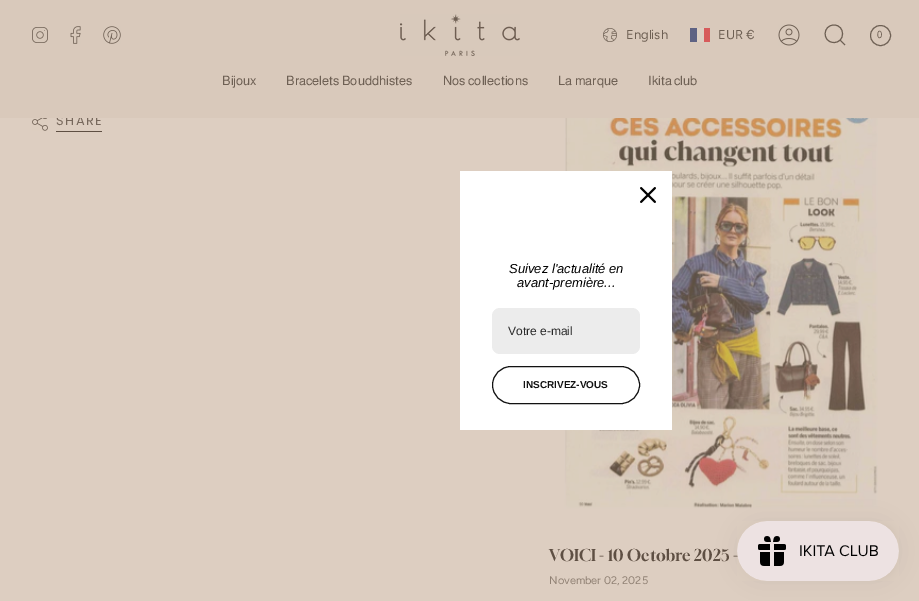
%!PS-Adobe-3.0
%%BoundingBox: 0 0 919 601
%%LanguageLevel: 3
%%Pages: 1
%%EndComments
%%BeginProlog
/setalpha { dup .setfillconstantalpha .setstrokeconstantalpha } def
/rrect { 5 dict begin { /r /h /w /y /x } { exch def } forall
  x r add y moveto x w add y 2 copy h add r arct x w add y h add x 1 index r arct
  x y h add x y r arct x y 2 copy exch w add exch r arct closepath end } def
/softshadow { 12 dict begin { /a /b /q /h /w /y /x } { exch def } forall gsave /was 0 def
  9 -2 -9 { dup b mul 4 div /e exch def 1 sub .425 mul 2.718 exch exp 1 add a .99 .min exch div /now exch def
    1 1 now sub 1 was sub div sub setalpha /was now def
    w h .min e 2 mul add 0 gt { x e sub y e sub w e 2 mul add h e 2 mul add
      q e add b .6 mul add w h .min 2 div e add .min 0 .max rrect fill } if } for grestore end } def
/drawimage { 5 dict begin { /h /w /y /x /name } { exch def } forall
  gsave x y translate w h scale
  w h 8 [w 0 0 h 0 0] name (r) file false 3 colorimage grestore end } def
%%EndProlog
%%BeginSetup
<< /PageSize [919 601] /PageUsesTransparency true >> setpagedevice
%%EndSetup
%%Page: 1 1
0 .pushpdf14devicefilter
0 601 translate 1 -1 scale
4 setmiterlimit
0.867 0.808 0.757 setrgbcolor
0 0 919 601 rectfill
(images/7.raw) 32 118 16 13 drawimage
0.369 0.31 0.263 setrgbcolor
56 131 46 1 rectfill
(images/8.raw) 564 118 314 391 drawimage
1 setgray
460 171 212 259 rectfill
(images/9.raw) 640 187 16 16 drawimage
0.925 setgray
492 308 148 46 8 rrect fill
0.071 setgray
492.5 366.5 147 37 18.5 rrect stroke
0 setgray
737 521 162 60 30 12.5 0.05 softshadow
0.369 0.31 0.263 setrgbcolor
849 531 40 40 0 5 0.2 softshadow
/Poppins-Regular [13 0 0 -13 0 0] selectfont
0.467 0.408 0.361 setrgbcolor
56 125 moveto 1.5 0 (SHARE) ashow
0.851 0.788 0.733 setrgbcolor
0 0 919 118 rectfill
/Almarai-Regular [13 0 0 -13 0 0] selectfont
0.431 0.376 0.329 setrgbcolor
648 85 moveto (Ikita club) show
558 85 moveto (La marque) show
443 85 moveto (Nos collections) show
286 85 moveto (Bracelets Bouddhistes) show
222 85 moveto (Bijoux) show
newpath 880.5 35.5 10 0 360 arc closepath stroke
/Almarai-Regular [10 0 0 -10 0 0] selectfont
877 38 moveto (0) show
newpath 834 25 moveto 845.5 25 845.5 43 833.5 42.5 curveto 822 42 822.5 25 834 25 curveto closepath 840 40 moveto 845 45 lineto stroke
(images/6.raw) 778 24 22 22 drawimage
/Figtree-Regular [13 0 0 -13 0 0] selectfont
718 39 moveto (EUR €) show
0.843 0.357 0.357 setrgbcolor
704 28 6 14 rectfill
0.369 0.384 0.514 setrgbcolor
690 28 7 14 rectfill
0.867 0.812 0.765 setrgbcolor
697 28 7 14 rectfill
(images/5.raw) 603 28 14 14 drawimage
0.431 0.376 0.329 setrgbcolor
626 39 moveto (English) show
(images/4.raw) 400 14 120 42 drawimage
(images/3.raw) 103 26 18 18 drawimage
(images/2.raw) 70 26 11 18 drawimage
(images/1.raw) 32 27 16 16 drawimage
/Gloock-Regular [16 0 0 -16 0 0] selectfont
0.369 0.31 0.263 setrgbcolor
549 561 moveto (VOICI - 10 Octobre 2025 -) show
/Figtree-Regular [11 0 0 -11 0 0] selectfont
0.565 0.506 0.455 setrgbcolor
549 584 moveto (November 02, 2025) show
/LiberationSans-Italic [13 0 0 -13 0 0] selectfont
0 setgray
509 273 moveto (Suivez l'actualité en) show
517 287 moveto (avant-première...) show
/LiberationSans-Regular [12 0 0 -12 0 0] selectfont
0.161 setgray
508 335 moveto (Votre e-mail) show
/LiberationSans-Bold [10 0 0 -10 0 0] selectfont
0.071 setgray
523 388 moveto (INSCRIVEZ-VOUS) show
(images/10.raw) 737 521 162 60 drawimage
.poppdf14devicefilter showpage
%%EOF
